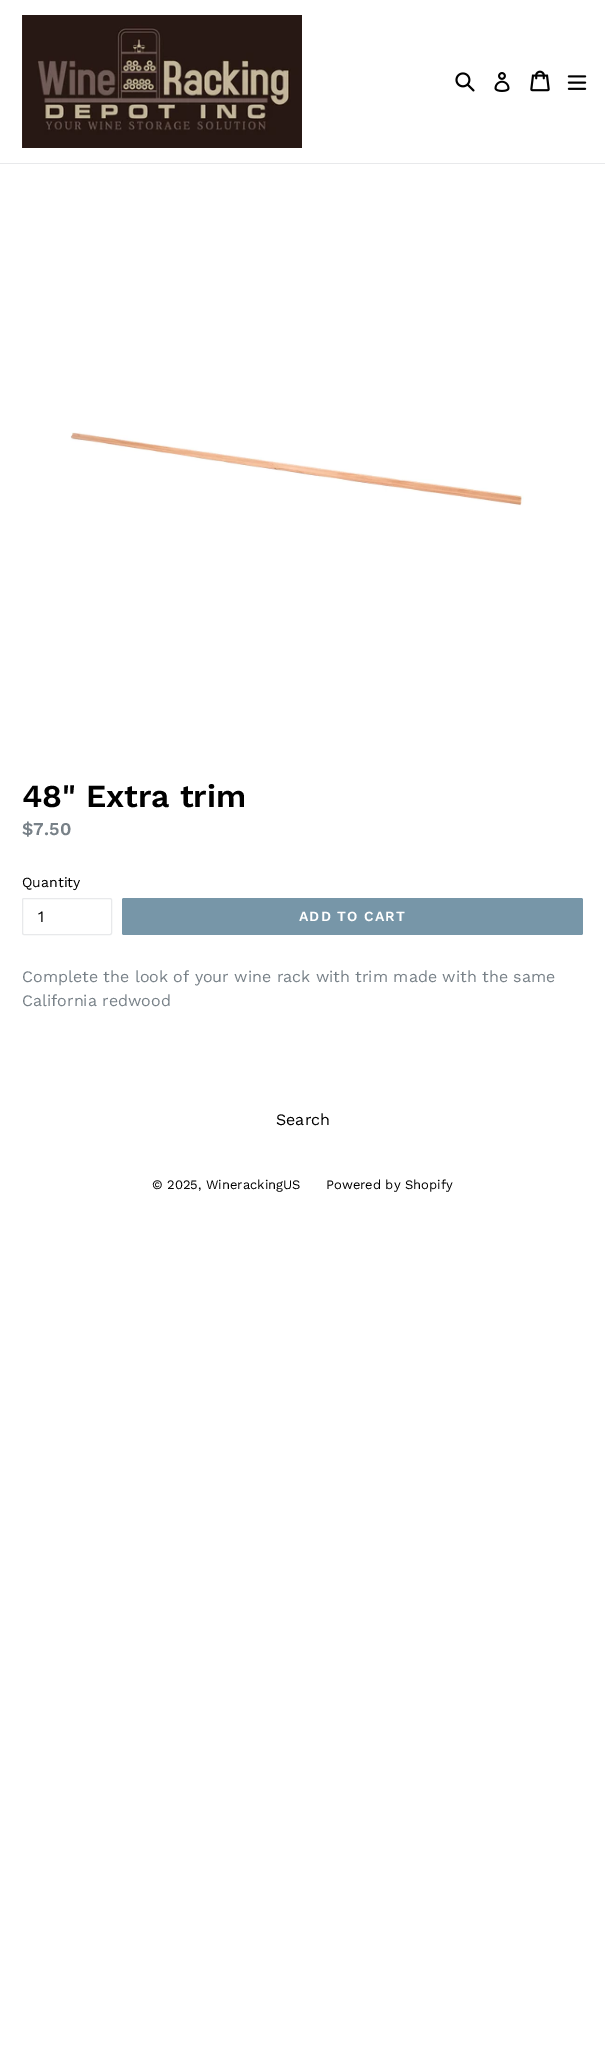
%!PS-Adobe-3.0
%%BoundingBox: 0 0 605 2054
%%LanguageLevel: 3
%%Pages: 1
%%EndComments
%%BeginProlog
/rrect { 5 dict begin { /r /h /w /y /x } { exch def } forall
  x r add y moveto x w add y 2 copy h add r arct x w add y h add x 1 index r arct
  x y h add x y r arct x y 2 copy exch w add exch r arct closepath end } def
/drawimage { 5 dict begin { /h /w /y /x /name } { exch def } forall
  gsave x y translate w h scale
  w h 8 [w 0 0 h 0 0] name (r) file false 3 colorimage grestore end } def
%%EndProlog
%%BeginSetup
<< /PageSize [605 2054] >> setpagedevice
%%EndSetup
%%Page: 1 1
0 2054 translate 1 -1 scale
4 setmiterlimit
1 setgray
0 0 605 2054 rectfill
0.91 0.914 0.922 setrgbcolor
0 163 605 1 rectfill
(images/1.raw) 22 15 280 133 drawimage
(images/2.raw) 455 72 20 20 drawimage
(images/3.raw) 494 72 16 20 drawimage
(images/4.raw) 530 70 20 22 drawimage
(images/5.raw) 567 75 20 15 drawimage
(images/6.raw) 70 432 454 74 drawimage
22.5 898.5 89 36 1.5 rrect stroke
0.467 0.588 0.659 setrgbcolor
122 898 461 37 2 rrect fill
/WorkSans-SemiBold [32 0 0 -32 0 0] selectfont
0 setgray
22 807 moveto (48" Extra trim) show
/WorkSans-SemiBold [18 0 0 -18 0 0] selectfont
0.471 0.506 0.533 setrgbcolor
22 835 moveto ($7.50) show
/WorkSans-Regular [14 0 0 -14 0 0] selectfont
0 setgray
22 887 moveto (Quantity) show
/WorkSans-Regular [16 0 0 -16 0 0] selectfont
38 922 moveto (1) show
/WorkSans-SemiBold [14 0 0 -14 0 0] selectfont
1 setgray
299 921 moveto 1.1 0 (ADD TO CART) ashow
/WorkSans-Regular [16 0 0 -16 0 0] selectfont
0.471 0.506 0.533 setrgbcolor
22 982 moveto (Complete the look of your wine rack with trim made with the same) show
22 1006 moveto (California redwood) show
0 setgray
276 1125 moveto (Search) show
/WorkSans-Regular [13 0 0 -13 0 0] selectfont
152 1189 moveto (© 2025, WinerackingUS) show
326 1189 moveto (Powered by Shopify) show
showpage
%%EOF
